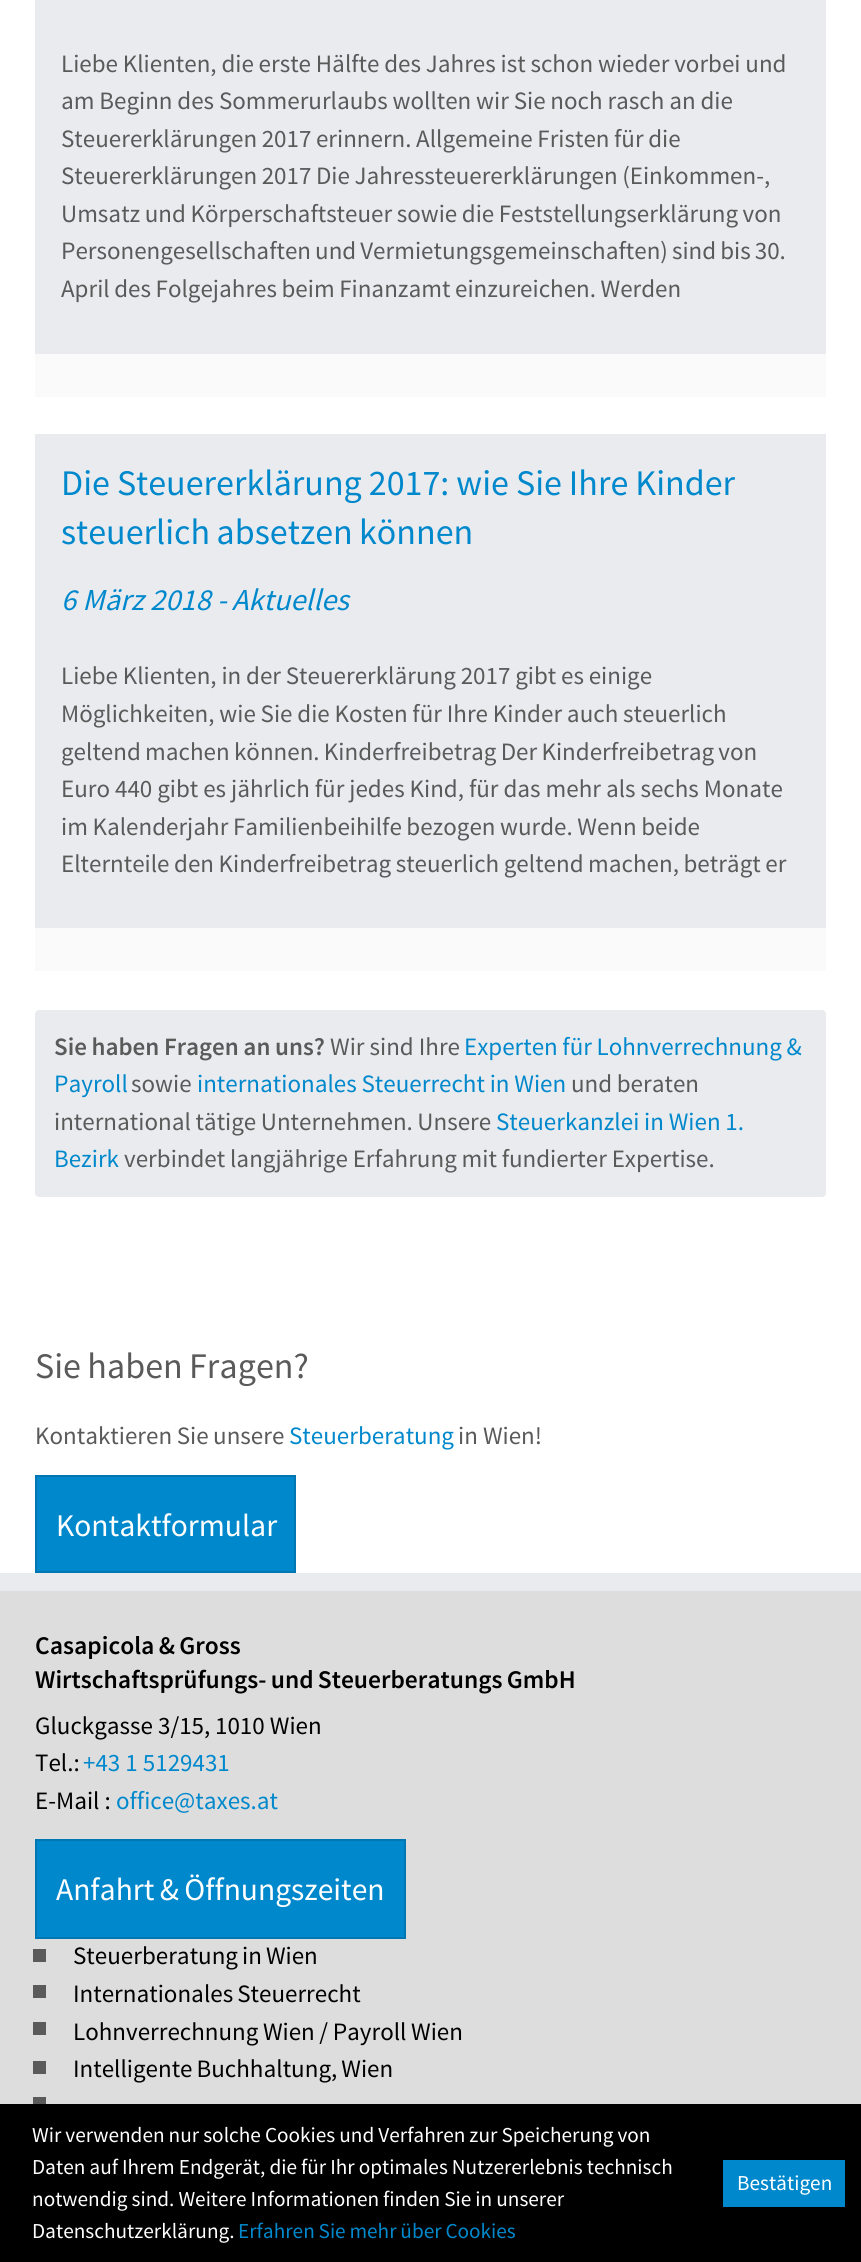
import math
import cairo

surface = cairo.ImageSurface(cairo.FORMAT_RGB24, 861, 2262)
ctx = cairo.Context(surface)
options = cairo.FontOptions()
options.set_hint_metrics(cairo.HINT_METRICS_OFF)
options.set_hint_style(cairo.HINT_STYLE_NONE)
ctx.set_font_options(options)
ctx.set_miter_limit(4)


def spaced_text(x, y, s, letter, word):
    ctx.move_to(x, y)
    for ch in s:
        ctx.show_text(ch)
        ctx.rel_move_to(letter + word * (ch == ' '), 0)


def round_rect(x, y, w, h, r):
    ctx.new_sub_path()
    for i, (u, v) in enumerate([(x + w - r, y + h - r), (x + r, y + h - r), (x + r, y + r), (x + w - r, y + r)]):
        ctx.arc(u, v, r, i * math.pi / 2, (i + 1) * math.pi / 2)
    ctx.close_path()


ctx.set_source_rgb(1, 1, 1)
ctx.paint()
ctx.set_source_rgb(0.914, 0.918, 0.933)
ctx.rectangle(35, 0, 791, 354)
ctx.fill()
ctx.set_source_rgb(0.98, 0.98, 0.98)
ctx.rectangle(35, 354, 791, 43)
ctx.fill()
ctx.select_font_face("Source Sans Pro")
ctx.set_font_size(25)
ctx.set_source_rgb(0.353, 0.353, 0.353)
spaced_text(61, 72, "Liebe Klienten, die erste Hälfte des Jahres ist schon wieder vorbei und", 0, -0.25)
spaced_text(61, 109, "am Beginn des Sommerurlaubs wollten wir Sie noch rasch an die", 0, -0.25)
spaced_text(61, 147, "Steuererklärungen 2017 erinnern. Allgemeine Fristen für die", 0, -0.5)
spaced_text(61, 184, "Steuererklärungen 2017 Die Jahressteuererklärungen (Einkommen-,", 0, -0.5)
spaced_text(61, 222, "Umsatz und Körperschaftsteuer sowie die Feststellungserklärung von", 0, -0.5)
spaced_text(61, 259, "Personengesellschaften und Vermietungsgemeinschaften) sind bis 30.", 0, -1)
spaced_text(61, 297, "April des Folgejahres beim Finanzamt einzureichen. Werden", 0, -0.5)
ctx.set_source_rgb(0.914, 0.918, 0.933)
ctx.rectangle(35, 434, 791, 494)
ctx.fill()
ctx.set_source_rgb(0.98, 0.98, 0.98)
ctx.rectangle(35, 928, 791, 43)
ctx.fill()
ctx.set_font_size(36)
ctx.set_source_rgb(0, 0.533, 0.8)
spaced_text(61, 495, "Die Steuererklärung 2017: wie Sie Ihre Kinder", 0, -0.25)
spaced_text(61, 544, "steuerlich absetzen können", 0, -1)
ctx.select_font_face("Source Sans Pro", cairo.FONT_SLANT_ITALIC)
ctx.set_font_size(30.5)
ctx.move_to(61, 610)
ctx.show_text("6 März")
ctx.move_to(150, 610)
ctx.show_text("2018")
spaced_text(217, 610, "- Aktuelles", 0, -1)
ctx.select_font_face("Source Sans Pro")
ctx.set_font_size(25)
ctx.set_source_rgb(0.353, 0.353, 0.353)
spaced_text(61, 684, "Liebe Klienten, in der Steuererklärung 2017 gibt es einige", 0, -0.25)
spaced_text(61, 722, "Möglichkeiten, wie Sie die Kosten für Ihre Kinder auch steuerlich", 0, -0.25)
spaced_text(61, 760, "geltend machen können. Kinderfreibetrag Der Kinderfreibetrag von", 0, -0.75)
spaced_text(61, 797, "Euro 440 gibt es jährlich für jedes Kind, für das mehr als sechs Monate", 0, -0.1)
spaced_text(61, 835, "im Kalenderjahr Familienbeihilfe bezogen wurde. Wenn beide", 0, -0.5)
spaced_text(61, 872, "Elternteile den Kinderfreibetrag steuerlich geltend machen, beträgt er", 0, -0.5)
ctx.set_source_rgb(0.914, 0.918, 0.933)
round_rect(35, 1010, 791, 187, 4)
ctx.fill()
ctx.select_font_face("Source Sans Pro SemiBold")
ctx.set_source_rgb(0.353, 0.353, 0.353)
spaced_text(54, 1055, "Sie haben Fragen an uns?", 0, -0.5)
ctx.select_font_face("Source Sans Pro")
ctx.move_to(330, 1055)
ctx.show_text("Wir sind Ihre")
ctx.set_source_rgb(0, 0.533, 0.8)
spaced_text(464, 1055, "Experten für Lohnverrechnung &", 0, -0.5)
ctx.move_to(54, 1092)
ctx.show_text("Payroll")
ctx.set_source_rgb(0.353, 0.353, 0.353)
ctx.move_to(131, 1092)
ctx.show_text("sowie")
ctx.set_source_rgb(0, 0.533, 0.8)
spaced_text(197, 1092, "internationales Steuerrecht in Wien", 0, -0.25)
ctx.set_source_rgb(0.353, 0.353, 0.353)
spaced_text(571, 1092, "und beraten", 0, -0.5)
spaced_text(54, 1130, "international tätige Unternehmen. Unsere", 0, -0.5)
ctx.set_source_rgb(0, 0.533, 0.8)
spaced_text(496, 1130, "Steuerkanzlei in Wien 1.", 0, -0.25)
ctx.move_to(54, 1167)
ctx.show_text("Bezirk")
ctx.set_source_rgb(0.353, 0.353, 0.353)
spaced_text(124, 1167, "verbindet langjährige Erfahrung mit fundierter Expertise.", 0, -0.25)
ctx.set_font_size(36)
spaced_text(35, 1378, "Sie haben Fragen?", 0, -1)
ctx.set_font_size(25)
spaced_text(35, 1444, "Kontaktieren Sie unsere", 0, -0.5)
ctx.set_source_rgb(0, 0.533, 0.8)
ctx.move_to(289, 1444)
ctx.show_text("Steuerberatung")
ctx.set_source_rgb(0.353, 0.353, 0.353)
ctx.move_to(458, 1444)
ctx.show_text("in Wien!")
ctx.set_source_rgb(0, 0.533, 0.8)
ctx.rectangle(36, 1476, 259, 96)
ctx.fill_preserve()
ctx.set_source_rgb(0, 0.467, 0.702)
ctx.stroke()
ctx.set_font_size(31.5)
ctx.set_source_rgb(1, 1, 1)
ctx.move_to(56, 1536)
ctx.show_text("Kontaktformular")
ctx.set_source_rgb(0.867, 0.867, 0.867)
ctx.rectangle(0, 1591, 861, 513)
ctx.fill()
ctx.set_source_rgb(0.914, 0.918, 0.933)
ctx.rectangle(0, 1573, 861, 18)
ctx.fill()
ctx.select_font_face("Source Sans Pro SemiBold")
ctx.set_font_size(25.5)
ctx.set_source_rgb(0, 0, 0)
spaced_text(35, 1654, "Casapicola & Gross", 0, -1)
spaced_text(35, 1688, "Wirtschaftsprüfungs- und Steuerberatungs GmbH", 0, -1)
ctx.select_font_face("Source Sans Pro")
ctx.set_font_size(25)
ctx.move_to(35, 1734)
ctx.show_text("Gluckgasse 3/15,")
ctx.move_to(215, 1734)
ctx.show_text("1010 Wien")
ctx.move_to(35, 1771)
ctx.show_text("Tel.:")
ctx.set_source_rgb(0, 0.533, 0.8)
ctx.move_to(83, 1771)
ctx.show_text("+43 1 5129431")
ctx.set_source_rgb(0, 0, 0)
ctx.move_to(35, 1809)
ctx.show_text("E-Mail :")
ctx.set_source_rgb(0, 0.533, 0.8)
ctx.move_to(116, 1809)
ctx.show_text("office@taxes.at")
ctx.rectangle(36, 1840, 369, 98)
ctx.fill_preserve()
ctx.set_source_rgb(0, 0.467, 0.702)
ctx.stroke()
ctx.set_font_size(31.5)
ctx.set_source_rgb(1, 1, 1)
spaced_text(56, 1900, "Anfahrt & Öffnungszeiten", 0, -1)
ctx.set_source_rgb(0.353, 0.353, 0.353)
ctx.rectangle(33, 1949, 13, 13)
ctx.fill()
ctx.set_font_size(25)
ctx.set_source_rgb(0, 0, 0)
spaced_text(73, 1964, "Steuerberatung in Wien", 0, -1)
ctx.set_source_rgb(0.353, 0.353, 0.353)
ctx.rectangle(33, 1985, 13, 13)
ctx.fill()
ctx.set_source_rgb(0, 0, 0)
spaced_text(73, 2002, "Internationales Steuerrecht", 0, -1)
ctx.set_source_rgb(0.353, 0.353, 0.353)
ctx.rectangle(33, 2022, 13, 13)
ctx.fill()
ctx.set_source_rgb(0, 0, 0)
spaced_text(73, 2040, "Lohnverrechnung Wien / Payroll Wien", 0, -0.5)
ctx.set_source_rgb(0.353, 0.353, 0.353)
ctx.rectangle(33, 2061, 13, 13)
ctx.fill()
ctx.set_source_rgb(0, 0, 0)
spaced_text(73, 2077, "Intelligente Buchhaltung, Wien", 0, -1)
ctx.set_source_rgb(0.353, 0.353, 0.353)
ctx.rectangle(33, 2097, 13, 7)
ctx.fill()
ctx.set_source_rgb(0, 0, 0)
ctx.rectangle(0, 2104, 861, 158)
ctx.fill()
ctx.set_font_size(21.25)
ctx.set_source_rgb(1, 1, 1)
spaced_text(32, 2142, "Wir verwenden nur solche Cookies und Verfahren zur Speicherung von", 0, -0.25)
spaced_text(32, 2174, "Daten auf Ihrem Endgerät, die für Ihr optimales Nutzererlebnis technisch", 0, -0.25)
spaced_text(32, 2206, "notwendig sind. Weitere Informationen finden Sie in unserer", 0, -0.25)
ctx.move_to(32, 2238)
ctx.show_text("Datenschutzerklärung.")
ctx.set_source_rgb(0, 0.533, 0.8)
spaced_text(238, 2238, "Erfahren Sie mehr über Cookies", 0, -0.5)
ctx.rectangle(723, 2160, 122, 47)
ctx.fill()
ctx.set_source_rgb(1, 1, 1)
ctx.move_to(737, 2190)
ctx.show_text("Bestätigen")
surface.write_to_png("page.png")
